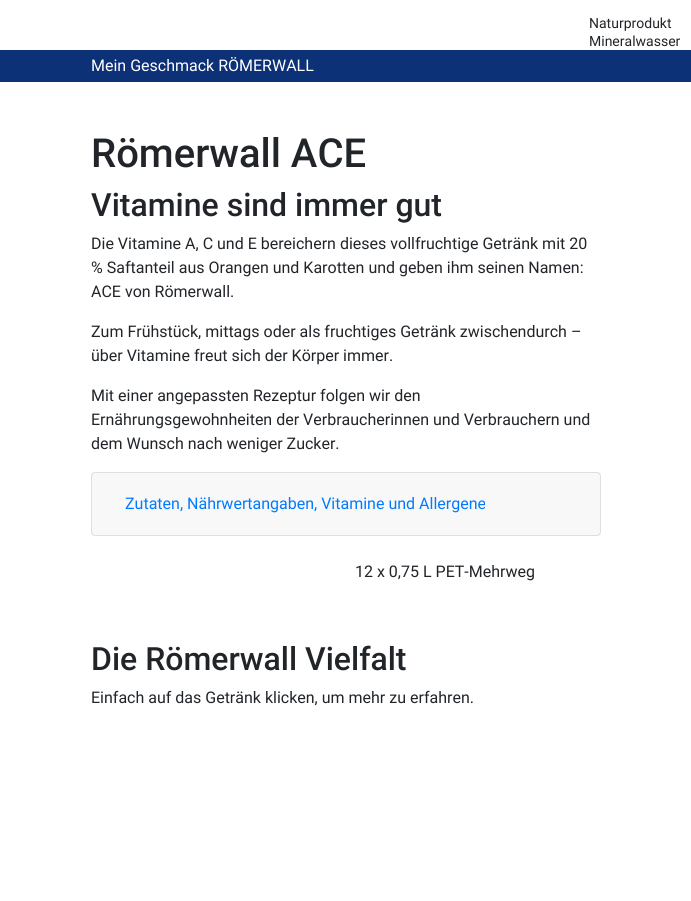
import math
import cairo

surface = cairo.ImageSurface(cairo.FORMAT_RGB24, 691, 901)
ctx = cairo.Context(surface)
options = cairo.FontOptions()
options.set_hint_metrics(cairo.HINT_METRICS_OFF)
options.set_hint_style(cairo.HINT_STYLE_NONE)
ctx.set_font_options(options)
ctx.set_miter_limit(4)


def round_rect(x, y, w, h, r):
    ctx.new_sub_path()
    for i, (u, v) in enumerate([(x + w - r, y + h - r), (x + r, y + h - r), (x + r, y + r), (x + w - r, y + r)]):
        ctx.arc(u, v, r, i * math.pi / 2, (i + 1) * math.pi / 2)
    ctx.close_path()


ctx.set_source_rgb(1, 1, 1)
ctx.paint()
ctx.select_font_face("Roboto")
ctx.set_font_size(14)
ctx.set_source_rgb(0.129, 0.145, 0.161)
ctx.move_to(589, 28)
ctx.show_text("Naturprodukt")
ctx.move_to(589, 46)
ctx.show_text("Mineralwasser")
ctx.set_source_rgb(0.047, 0.192, 0.463)
ctx.rectangle(0, 50, 691, 32)
ctx.fill()
ctx.set_font_size(16)
ctx.set_source_rgb(1, 1, 1)
ctx.move_to(91, 71)
ctx.show_text("Mein Geschmack RÖMERWALL")
ctx.select_font_face("Roboto Medium")
ctx.set_font_size(40)
ctx.set_source_rgb(0.129, 0.145, 0.161)
ctx.move_to(91, 167)
ctx.show_text("Römerwall ACE")
ctx.set_font_size(32)
ctx.move_to(91, 216)
ctx.show_text("Vitamine sind immer gut")
ctx.select_font_face("Roboto")
ctx.set_font_size(16)
ctx.move_to(91, 249)
ctx.show_text("Die Vitamine A, C und E bereichern dieses vollfruchtige Getränk mit 20")
ctx.move_to(91, 273)
ctx.show_text("% Saftanteil aus Orangen und Karotten und geben ihm seinen Namen:")
ctx.move_to(91, 297)
ctx.show_text("ACE von Römerwall.")
ctx.move_to(91, 337)
ctx.show_text("Zum Frühstück, mittags oder als fruchtiges Getränk zwischendurch –")
ctx.move_to(91, 361)
ctx.show_text("über Vitamine freut sich der Körper immer.")
ctx.move_to(91, 401)
ctx.show_text("Mit einer angepassten Rezeptur folgen wir den")
ctx.move_to(91, 425)
ctx.show_text("Ernährungsgewohnheiten der Verbraucherinnen und Verbrauchern und")
ctx.move_to(91, 449)
ctx.show_text("dem Wunsch nach weniger Zucker.")
round_rect(91.5, 472.5, 509, 63, 3.5)
ctx.set_source_rgb(0.875, 0.875, 0.875)
ctx.set_line_width(1)
ctx.stroke()
ctx.set_source_rgba(0, 0, 0, 0.03)
ctx.rectangle(92, 473, 508, 62)
ctx.fill()
ctx.set_source_rgb(0, 0.482, 1)
ctx.move_to(125, 509)
ctx.show_text("Zutaten, Nährwertangaben, Vitamine und Allergene")
ctx.set_source_rgb(0.129, 0.145, 0.161)
ctx.move_to(355, 577)
ctx.show_text("12 x 0,75 L PET-Mehrweg")
ctx.select_font_face("Roboto Medium")
ctx.set_font_size(32)
ctx.move_to(91, 670)
ctx.show_text("Die Römerwall Vielfalt")
ctx.select_font_face("Roboto")
ctx.set_font_size(16)
ctx.move_to(91, 703)
ctx.show_text("Einfach auf das Getränk klicken, um mehr zu erfahren.")
surface.write_to_png("page.png")
